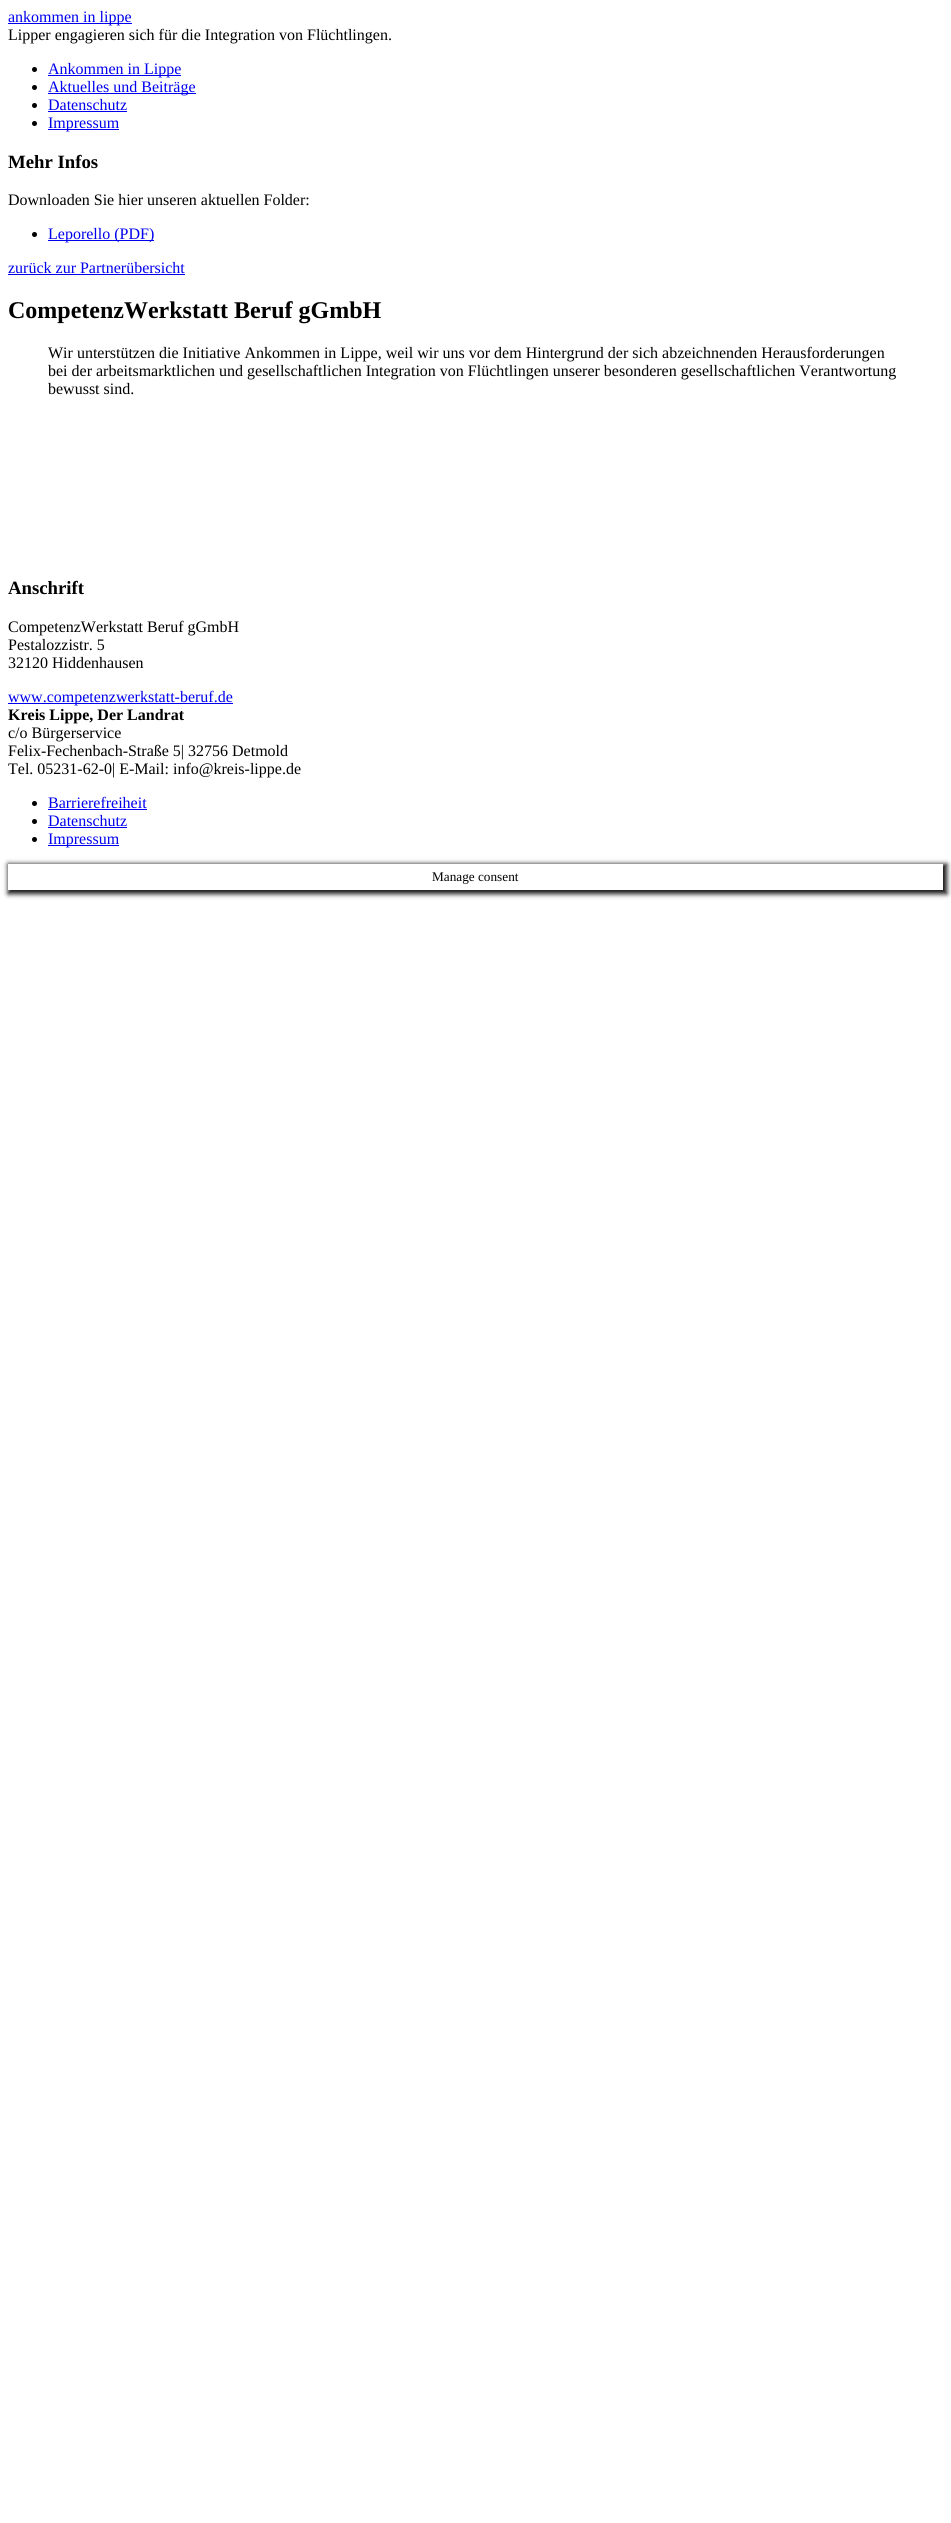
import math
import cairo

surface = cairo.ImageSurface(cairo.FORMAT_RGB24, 951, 2523)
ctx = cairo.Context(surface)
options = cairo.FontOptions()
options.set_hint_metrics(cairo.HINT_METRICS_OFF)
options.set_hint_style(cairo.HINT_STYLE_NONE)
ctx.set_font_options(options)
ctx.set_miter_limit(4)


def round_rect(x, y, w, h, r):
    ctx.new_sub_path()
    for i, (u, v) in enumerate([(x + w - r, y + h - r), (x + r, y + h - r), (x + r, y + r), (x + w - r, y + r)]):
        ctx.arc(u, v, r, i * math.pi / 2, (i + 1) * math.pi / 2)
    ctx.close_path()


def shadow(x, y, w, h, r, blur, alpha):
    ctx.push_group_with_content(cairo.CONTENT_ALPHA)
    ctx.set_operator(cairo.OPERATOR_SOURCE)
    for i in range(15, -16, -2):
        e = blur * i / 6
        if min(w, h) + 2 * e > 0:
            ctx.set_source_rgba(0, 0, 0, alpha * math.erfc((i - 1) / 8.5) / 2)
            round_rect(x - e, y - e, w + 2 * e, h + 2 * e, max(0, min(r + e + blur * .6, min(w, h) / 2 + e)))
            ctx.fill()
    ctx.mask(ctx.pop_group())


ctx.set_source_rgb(1, 1, 1)
ctx.paint()
ctx.set_source_rgb(0, 0, 0.933)
ctx.rectangle(8, 23, 124, 1)
ctx.fill()
ctx.select_font_face("Liberation Serif")
ctx.set_font_size(16)
ctx.move_to(8, 22)
ctx.show_text("ankommen in lippe")
ctx.set_source_rgb(0, 0, 0)
ctx.move_to(8, 40)
ctx.show_text("Lipper engagieren sich für die Integration von Flüchtlingen.")
ctx.new_path()
ctx.arc(34.5, 69.5, 2.5, 0, 2 * math.pi)
ctx.fill()
ctx.set_source_rgb(0, 0, 0.933)
ctx.rectangle(48, 75, 133, 1)
ctx.fill()
ctx.move_to(48, 74)
ctx.show_text("Ankommen in Lippe")
ctx.set_source_rgb(0, 0, 0)
ctx.new_path()
ctx.arc(34.5, 87.5, 2.5, 0, 2 * math.pi)
ctx.fill()
ctx.set_source_rgb(0, 0, 0.933)
ctx.rectangle(48, 93, 148, 1)
ctx.fill()
ctx.move_to(48, 92)
ctx.show_text("Aktuelles und Beiträge")
ctx.set_source_rgb(0, 0, 0)
ctx.new_path()
ctx.arc(34.5, 105.5, 2.5, 0, 2 * math.pi)
ctx.fill()
ctx.set_source_rgb(0, 0, 0.933)
ctx.move_to(48, 110)
ctx.show_text("Datenschutz")
ctx.rectangle(48, 111, 79, 1)
ctx.fill()
ctx.set_source_rgb(0, 0, 0)
ctx.arc(34.5, 123.5, 2.5, 0, 2 * math.pi)
ctx.fill()
ctx.set_source_rgb(0, 0, 0.933)
ctx.rectangle(48, 129, 71, 1)
ctx.fill()
ctx.move_to(48, 128)
ctx.show_text("Impressum")
ctx.select_font_face("Liberation Serif", cairo.FONT_SLANT_NORMAL, cairo.FONT_WEIGHT_BOLD)
ctx.set_font_size(18.75)
ctx.set_source_rgb(0, 0, 0)
ctx.move_to(8, 168)
ctx.show_text("Mehr Infos")
ctx.select_font_face("Liberation Serif")
ctx.set_font_size(16)
ctx.move_to(8, 205)
ctx.show_text("Downloaden Sie hier unseren aktuellen Folder:")
ctx.new_path()
ctx.arc(34.5, 234.5, 2.5, 0, 2 * math.pi)
ctx.fill()
ctx.set_source_rgb(0, 0, 0.933)
ctx.rectangle(48, 240, 106, 1)
ctx.fill()
ctx.move_to(48, 239)
ctx.show_text("Leporello (PDF)")
ctx.move_to(8, 273)
ctx.show_text("zurück zur Partnerübersicht")
ctx.rectangle(8, 274, 177, 1)
ctx.fill()
ctx.select_font_face("Liberation Serif", cairo.FONT_SLANT_NORMAL, cairo.FONT_WEIGHT_BOLD)
ctx.set_font_size(24)
ctx.set_source_rgb(0, 0, 0)
ctx.move_to(8, 318)
ctx.show_text("CompetenzWerkstatt Beruf gGmbH")
ctx.select_font_face("Liberation Serif")
ctx.set_font_size(16)
ctx.move_to(48, 358)
ctx.show_text("Wir unterstützen die Initiative Ankommen in Lippe, weil wir uns vor dem Hintergrund der sich abzeichnenden Herausforderungen")
ctx.move_to(48, 376)
ctx.show_text("bei der arbeitsmarktlichen und gesellschaftlichen Integration von Flüchtlingen unserer besonderen gesellschaftlichen Verantwortung")
ctx.move_to(48, 394)
ctx.show_text("bewusst sind.")
ctx.select_font_face("Liberation Serif", cairo.FONT_SLANT_NORMAL, cairo.FONT_WEIGHT_BOLD)
ctx.set_font_size(18.75)
ctx.move_to(8, 594)
ctx.show_text("Anschrift")
ctx.select_font_face("Liberation Serif")
ctx.set_font_size(16)
ctx.move_to(8, 632)
ctx.show_text("CompetenzWerkstatt Beruf gGmbH")
ctx.move_to(8, 650)
ctx.show_text("Pestalozzistr. 5")
ctx.move_to(8, 668)
ctx.show_text("32120 Hiddenhausen")
ctx.set_source_rgb(0, 0, 0.933)
ctx.rectangle(8, 703, 225, 1)
ctx.fill()
ctx.move_to(8, 702)
ctx.show_text("www.competenzwerkstatt-beruf.de")
ctx.select_font_face("Liberation Serif", cairo.FONT_SLANT_NORMAL, cairo.FONT_WEIGHT_BOLD)
ctx.set_source_rgb(0, 0, 0)
ctx.move_to(8, 720)
ctx.show_text("Kreis Lippe, Der Landrat")
ctx.select_font_face("Liberation Serif")
ctx.move_to(8, 738)
ctx.show_text("c/o Bürgerservice")
ctx.move_to(8, 756)
ctx.show_text("Felix-Fechenbach-Straße 5| 32756 Detmold")
ctx.move_to(8, 774)
ctx.show_text("Tel. 05231-62-0| E-Mail: info@kreis-lippe.de")
ctx.new_path()
ctx.arc(34.5, 803.5, 2.5, 0, 2 * math.pi)
ctx.fill()
ctx.set_source_rgb(0, 0, 0.933)
ctx.move_to(48, 808)
ctx.show_text("Barrierefreiheit")
ctx.rectangle(48, 809, 99, 1)
ctx.fill()
ctx.set_source_rgb(0, 0, 0)
ctx.arc(34.5, 821.5, 2.5, 0, 2 * math.pi)
ctx.fill()
ctx.set_source_rgb(0, 0, 0.933)
ctx.move_to(48, 826)
ctx.show_text("Datenschutz")
ctx.rectangle(48, 827, 79, 1)
ctx.fill()
ctx.set_source_rgb(0, 0, 0)
ctx.arc(34.5, 839.5, 2.5, 0, 2 * math.pi)
ctx.fill()
ctx.set_source_rgb(0, 0, 0.933)
ctx.rectangle(48, 845, 71, 1)
ctx.fill()
ctx.move_to(48, 844)
ctx.show_text("Impressum")
ctx.save()
ctx.set_fill_rule(cairo.FILL_RULE_EVEN_ODD)
ctx.new_path()
ctx.move_to(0, 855)
ctx.line_to(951, 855)
ctx.line_to(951, 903)
ctx.line_to(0, 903)
ctx.close_path()
ctx.move_to(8, 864)
ctx.line_to(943, 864)
ctx.line_to(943, 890)
ctx.line_to(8, 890)
ctx.close_path()
ctx.clip()
ctx.set_source_rgb(0.086, 0.086, 0.086)
shadow(8, 864, 939, 30, 0, 2.5, 1)
ctx.restore()
ctx.set_font_size(13.25)
ctx.set_source_rgb(0, 0, 0)
ctx.move_to(432, 881)
ctx.show_text("Manage consent")
surface.write_to_png("page.png")
